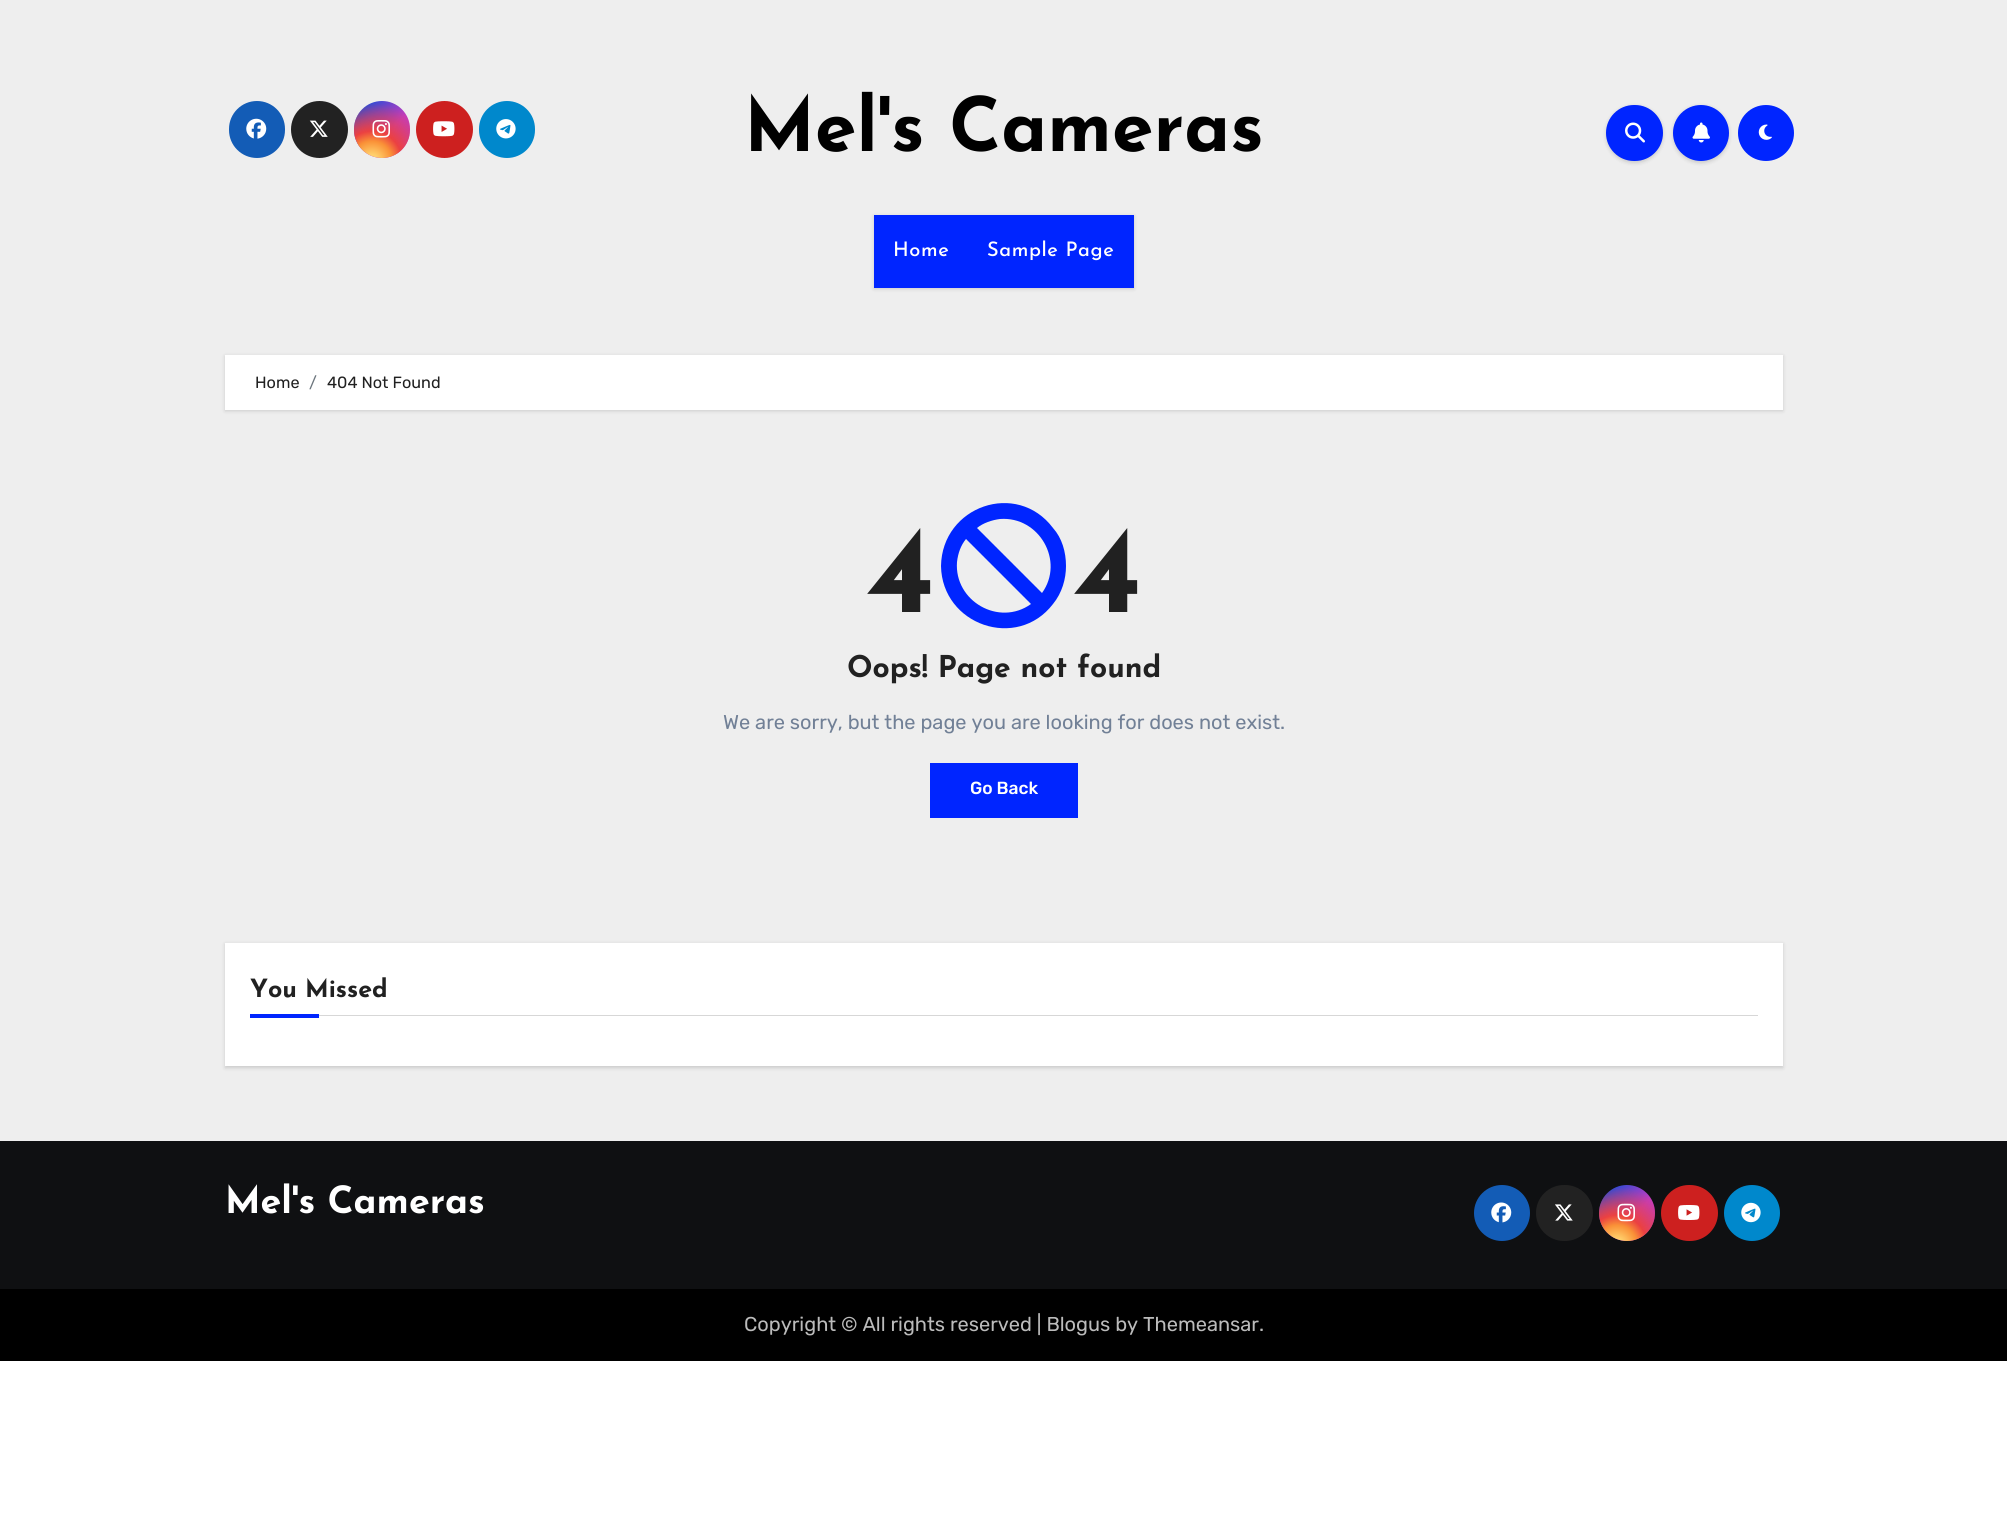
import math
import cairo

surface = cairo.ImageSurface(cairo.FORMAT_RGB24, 2007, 1537)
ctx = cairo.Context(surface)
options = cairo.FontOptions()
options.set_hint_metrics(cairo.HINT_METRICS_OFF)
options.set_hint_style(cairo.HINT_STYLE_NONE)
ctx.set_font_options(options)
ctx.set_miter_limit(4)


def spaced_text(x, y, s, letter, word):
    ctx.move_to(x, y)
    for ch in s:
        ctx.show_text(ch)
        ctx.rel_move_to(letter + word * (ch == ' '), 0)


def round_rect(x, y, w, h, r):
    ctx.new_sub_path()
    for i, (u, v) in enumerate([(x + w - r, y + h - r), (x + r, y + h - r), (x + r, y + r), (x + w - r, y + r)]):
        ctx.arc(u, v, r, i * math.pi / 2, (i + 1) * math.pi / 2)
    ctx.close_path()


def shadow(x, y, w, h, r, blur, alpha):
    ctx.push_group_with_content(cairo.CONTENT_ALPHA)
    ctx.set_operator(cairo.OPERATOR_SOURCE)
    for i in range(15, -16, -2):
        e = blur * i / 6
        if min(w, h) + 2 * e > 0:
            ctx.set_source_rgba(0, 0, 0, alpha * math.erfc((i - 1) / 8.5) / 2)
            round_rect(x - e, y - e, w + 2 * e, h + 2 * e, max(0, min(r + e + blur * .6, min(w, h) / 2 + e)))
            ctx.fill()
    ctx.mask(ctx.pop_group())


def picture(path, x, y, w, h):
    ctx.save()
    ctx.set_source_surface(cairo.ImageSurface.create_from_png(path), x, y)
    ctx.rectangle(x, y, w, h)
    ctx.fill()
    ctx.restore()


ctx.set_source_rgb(1, 1, 1)
ctx.paint()
ctx.set_source_rgb(0.933, 0.933, 0.933)
ctx.rectangle(0, 0, 2007, 1141)
ctx.fill()
ctx.set_source_rgb(0.075, 0.361, 0.714)
round_rect(229, 101, 56, 57, 28)
ctx.fill()
picture("img1.png", 246, 118, 21, 21)
ctx.set_source_rgb(0.133, 0.133, 0.133)
ctx.arc(319.5, 129.5, 28.5, 0, 2 * math.pi)
ctx.fill()
picture("img2.png", 309, 120, 19, 17)
gradient = cairo.LinearGradient(354, 101, 410, 158)
gradient.add_color_stop_rgba(0.12, 0.137, 0.294, 0.843, 1)
gradient.add_color_stop_rgba(0.58, 0.765, 0.235, 0.745, 1)
ctx.set_source(gradient)
round_rect(354, 101, 56, 57, 28)
ctx.fill()
gradient = cairo.RadialGradient(372, 161, 0, 372, 161, 71)
gradient.add_color_stop_rgba(0, 1, 0.882, 0.49, 1)
gradient.add_color_stop_rgba(0.1, 1, 0.804, 0.412, 1)
gradient.add_color_stop_rgba(0.28, 0.98, 0.569, 0.216, 1)
gradient.add_color_stop_rgba(0.42, 0.922, 0.255, 0.255, 1)
gradient.add_color_stop_rgba(0.82, 0.922, 0.255, 0.255, 0)
ctx.set_source(gradient)
round_rect(354, 101, 56, 57, 28)
ctx.fill()
picture("img3.png", 372, 120, 18, 18)
ctx.set_source_rgb(0.804, 0.125, 0.122)
ctx.arc(444.5, 129.5, 28.5, 0, 2 * math.pi)
ctx.fill()
picture("img4.png", 433, 121, 22, 16)
ctx.set_source_rgb(0, 0.533, 0.8)
round_rect(479, 101, 56, 57, 28)
ctx.fill()
picture("img5.png", 496, 119, 20, 20)
ctx.select_font_face("Josefin Sans", cairo.FONT_SLANT_NORMAL, cairo.FONT_WEIGHT_BOLD)
ctx.set_font_size(75)
ctx.set_source_rgb(0, 0, 0)
ctx.move_to(744, 151)
ctx.show_text("Mel's Cameras")
ctx.set_source_rgb(0, 0, 0)
shadow(1606, 106, 57, 57, 28.5, 2, 0.15)
ctx.set_source_rgb(0, 0.145, 1)
round_rect(1606, 105, 57, 56, 28)
ctx.fill()
picture("img6.png", 1625, 122, 20, 21)
ctx.set_source_rgb(0, 0, 0)
shadow(1673, 106, 56, 57, 28, 2, 0.15)
ctx.set_source_rgb(0, 0.145, 1)
ctx.arc(1701, 133, 28, 0, 2 * math.pi)
ctx.fill()
picture("img7.png", 1692, 122, 18, 21)
ctx.arc(1766, 133, 28, 0, 2 * math.pi)
ctx.fill()
picture("img8.png", 1758, 124, 14, 16)
ctx.set_source_rgb(0, 0, 0)
shadow(874, 216, 260, 73, 0, 2, 0.15)
ctx.set_source_rgb(0, 0.145, 1)
ctx.rectangle(874, 215, 260, 73)
ctx.fill()
ctx.select_font_face("Josefin Sans Medium")
ctx.set_font_size(20)
ctx.set_source_rgb(1, 1, 1)
spaced_text(893, 256, "Home", 0.6, 0)
spaced_text(987, 256, "Sample Page", 0.6, 0)
ctx.set_source_rgb(0, 0, 0)
shadow(225, 356, 1558, 55, 0, 2, 0.15)
ctx.set_source_rgb(1, 1, 1)
ctx.rectangle(225, 355, 1558, 55)
ctx.fill()
ctx.select_font_face("Rubik Light")
ctx.set_font_size(16.25)
ctx.set_source_rgb(0.129, 0.129, 0.129)
ctx.move_to(255, 388)
ctx.show_text("Home")
ctx.set_source_rgb(0.424, 0.459, 0.49)
ctx.move_to(309, 388)
ctx.show_text("/")
ctx.set_source_rgb(0.129, 0.129, 0.129)
ctx.move_to(327, 388)
ctx.show_text("404 Not Found")
ctx.select_font_face("Josefin Sans", cairo.FONT_SLANT_NORMAL, cairo.FONT_WEIGHT_BOLD)
ctx.set_font_size(125)
ctx.move_to(866, 612)
ctx.show_text("4")
ctx.set_source_rgb(0, 0.145, 1)
ctx.new_path()
ctx.move_to(1031, 604)
ctx.line_to(966, 539)
ctx.curve_to(961, 545, 958, 553, 957, 562)
ctx.curve_to(954, 601, 999, 627, 1031, 604)
ctx.close_path()
ctx.move_to(1042, 593)
ctx.curve_to(1065, 561, 1039, 516, 1000, 519)
ctx.curve_to(992, 520, 983, 523, 977, 528)
ctx.close_path()
ctx.move_to(941, 566)
ctx.curve_to(942, 506, 1017, 480, 1053, 528)
ctx.curve_to(1062, 538, 1066, 552, 1066, 566)
ctx.curve_to(1066, 579, 1062, 593, 1053, 604)
ctx.curve_to(1017, 651, 942, 625, 941, 566)
ctx.close_path()
ctx.fill()
ctx.set_source_rgb(0.129, 0.129, 0.129)
ctx.move_to(1073, 612)
ctx.show_text("4")
ctx.set_font_size(30)
ctx.move_to(847, 677)
ctx.show_text("Oops! Page not found")
ctx.select_font_face("Rubik Light")
ctx.set_font_size(20)
ctx.set_source_rgb(0.443, 0.502, 0.588)
ctx.move_to(723, 729)
ctx.show_text("We are sorry, but the page you are looking for does not exist.")
ctx.set_source_rgb(0, 0.145, 1)
ctx.rectangle(930, 763, 148, 55)
ctx.fill()
ctx.select_font_face("Rubik Medium")
ctx.set_font_size(17.5)
ctx.set_source_rgb(1, 1, 1)
ctx.move_to(970, 794)
ctx.show_text("Go Back")
ctx.set_source_rgb(0, 0, 0)
shadow(225, 944, 1558, 124, 0, 2, 0.15)
ctx.set_source_rgb(1, 1, 1)
ctx.rectangle(225, 943, 1558, 123)
ctx.fill()
ctx.set_source_rgb(0.843, 0.843, 0.843)
ctx.rectangle(319, 1015, 1439, 1)
ctx.fill()
ctx.select_font_face("Josefin Sans", cairo.FONT_SLANT_NORMAL, cairo.FONT_WEIGHT_BOLD)
ctx.set_font_size(25)
ctx.set_source_rgb(0.129, 0.129, 0.129)
ctx.move_to(250, 997)
ctx.show_text("You Missed")
ctx.set_source_rgb(0, 0.145, 1)
ctx.rectangle(250, 1014, 69, 4)
ctx.fill()
ctx.set_source_rgb(0.059, 0.063, 0.071)
ctx.rectangle(0, 1141, 2007, 148)
ctx.fill()
ctx.set_font_size(37.5)
ctx.set_source_rgb(1, 1, 1)
ctx.move_to(225, 1213)
ctx.show_text("Mel's Cameras")
ctx.set_source_rgb(0.075, 0.361, 0.714)
ctx.new_path()
ctx.arc(1502, 1213, 28, 0, 2 * math.pi)
ctx.fill()
picture("img9.png", 1491, 1202, 21, 21)
ctx.set_source_rgb(0.133, 0.133, 0.133)
round_rect(1536, 1185, 57, 56, 28)
ctx.fill()
picture("img10.png", 1555, 1204, 18, 17)
gradient = cairo.LinearGradient(1599, 1185, 1655, 1241)
gradient.add_color_stop_rgba(0.12, 0.137, 0.294, 0.843, 1)
gradient.add_color_stop_rgba(0.58, 0.765, 0.235, 0.745, 1)
ctx.set_source(gradient)
ctx.arc(1627, 1213, 28, 0, 2 * math.pi)
ctx.fill()
gradient = cairo.RadialGradient(1617, 1245, 0, 1617, 1245, 71)
gradient.add_color_stop_rgba(0, 1, 0.882, 0.49, 1)
gradient.add_color_stop_rgba(0.1, 1, 0.804, 0.412, 1)
gradient.add_color_stop_rgba(0.28, 0.98, 0.569, 0.216, 1)
gradient.add_color_stop_rgba(0.42, 0.922, 0.255, 0.255, 1)
gradient.add_color_stop_rgba(0.82, 0.922, 0.255, 0.255, 0)
ctx.set_source(gradient)
ctx.arc(1627, 1213, 28, 0, 2 * math.pi)
ctx.fill()
picture("img11.png", 1617, 1203, 18, 19)
ctx.set_source_rgb(0.804, 0.125, 0.122)
round_rect(1661, 1185, 57, 56, 28)
ctx.fill()
picture("img12.png", 1678, 1205, 22, 15)
ctx.set_source_rgb(0, 0.533, 0.8)
ctx.arc(1752, 1213, 28, 0, 2 * math.pi)
ctx.fill()
picture("img13.png", 1741, 1202, 20, 21)
ctx.set_source_rgb(0, 0, 0)
ctx.rectangle(0, 1289, 2007, 72)
ctx.fill()
ctx.select_font_face("Rubik Light")
ctx.set_font_size(20)
ctx.set_source_rgb(0.733, 0.733, 0.733)
ctx.move_to(744, 1331)
ctx.show_text("Copyright © All rights reserved | Blogus by Themeansar.")
surface.write_to_png("page.png")
